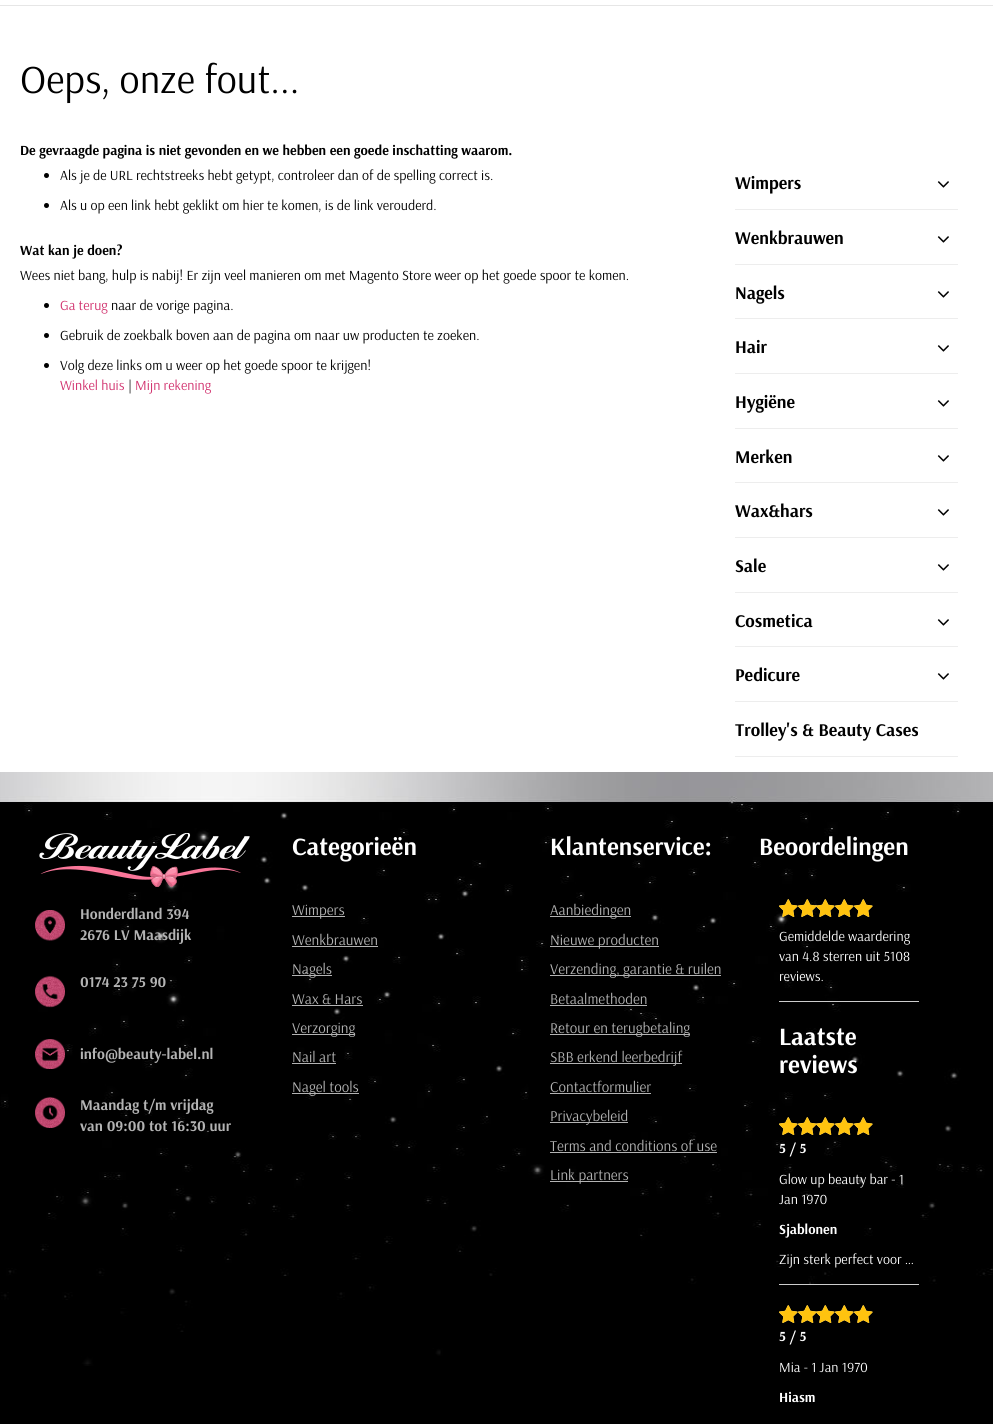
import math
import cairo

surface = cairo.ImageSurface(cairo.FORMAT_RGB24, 993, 1424)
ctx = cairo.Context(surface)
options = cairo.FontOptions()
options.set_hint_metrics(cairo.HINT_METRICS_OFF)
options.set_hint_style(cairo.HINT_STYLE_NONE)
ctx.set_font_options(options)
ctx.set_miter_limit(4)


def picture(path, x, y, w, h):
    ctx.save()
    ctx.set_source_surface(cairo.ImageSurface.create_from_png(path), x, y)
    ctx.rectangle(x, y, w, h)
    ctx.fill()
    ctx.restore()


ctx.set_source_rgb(1, 1, 1)
ctx.paint()
ctx.set_source_rgb(0.902, 0.902, 0.902)
ctx.rectangle(0, 5, 993, 1)
ctx.fill()
ctx.select_font_face("Arsenal")
ctx.set_font_size(40)
ctx.set_source_rgb(0, 0, 0)
ctx.move_to(20, 93)
ctx.show_text("Oeps, onze fout...")
ctx.select_font_face("Arsenal", cairo.FONT_SLANT_NORMAL, cairo.FONT_WEIGHT_BOLD)
ctx.set_font_size(14)
ctx.move_to(20, 155)
ctx.show_text("De gevraagde pagina is niet gevonden en we hebben een goede inschatting waarom.")
ctx.new_path()
ctx.arc(46.5, 175.5, 2.5, 0, 2 * math.pi)
ctx.fill()
ctx.select_font_face("Arsenal")
ctx.move_to(60, 180)
ctx.show_text("Als je de URL rechtstreeks hebt getypt, controleer dan of de spelling correct is.")
ctx.new_path()
ctx.arc(46.5, 205.5, 2.5, 0, 2 * math.pi)
ctx.fill()
ctx.move_to(60, 210)
ctx.show_text("Als u op een link hebt geklikt om hier te komen, is de link verouderd.")
ctx.select_font_face("Arsenal", cairo.FONT_SLANT_NORMAL, cairo.FONT_WEIGHT_BOLD)
ctx.move_to(20, 255)
ctx.show_text("Wat kan je doen?")
ctx.select_font_face("Arsenal")
ctx.move_to(20, 280)
ctx.show_text("Wees niet bang, hulp is nabij! Er zijn veel manieren om met Magento Store weer op het goede spoor te komen.")
ctx.new_path()
ctx.arc(46.5, 305.5, 2.5, 0, 2 * math.pi)
ctx.fill()
ctx.set_source_rgb(0.82, 0.188, 0.427)
ctx.move_to(60, 310)
ctx.show_text("Ga terug")
ctx.set_source_rgb(0, 0, 0)
ctx.move_to(111, 310)
ctx.show_text("naar de vorige pagina.")
ctx.new_path()
ctx.arc(46.5, 335.5, 2.5, 0, 2 * math.pi)
ctx.fill()
ctx.move_to(60, 340)
ctx.show_text("Gebruik de zoekbalk boven aan de pagina om naar uw producten te zoeken.")
ctx.new_path()
ctx.arc(46.5, 365.5, 2.5, 0, 2 * math.pi)
ctx.fill()
ctx.move_to(60, 370)
ctx.show_text("Volg deze links om u weer op het goede spoor te krijgen!")
ctx.set_source_rgb(0.82, 0.188, 0.427)
ctx.move_to(60, 390)
ctx.show_text("Winkel huis")
ctx.set_source_rgb(0, 0, 0)
ctx.move_to(128, 390)
ctx.show_text("|")
ctx.set_source_rgb(0.82, 0.188, 0.427)
ctx.move_to(135, 390)
ctx.show_text("Mijn rekening")
ctx.set_source_rgb(0.929, 0.929, 0.929)
ctx.rectangle(735, 209, 223, 1)
ctx.fill()
ctx.select_font_face("Arsenal", cairo.FONT_SLANT_NORMAL, cairo.FONT_WEIGHT_BOLD)
ctx.set_font_size(18)
ctx.set_source_rgb(0, 0, 0)
ctx.move_to(735, 189)
ctx.show_text("Wimpers")
picture("img1.png", 937, 181, 12, 7)
ctx.set_source_rgb(0.929, 0.929, 0.929)
ctx.rectangle(735, 264, 223, 1)
ctx.fill()
ctx.set_source_rgb(0, 0, 0)
ctx.move_to(735, 244)
ctx.show_text("Wenkbrauwen")
picture("img1.png", 937, 236, 12, 7)
ctx.set_source_rgb(0.929, 0.929, 0.929)
ctx.rectangle(735, 318, 223, 1)
ctx.fill()
ctx.set_source_rgb(0, 0, 0)
ctx.move_to(735, 299)
ctx.show_text("Nagels")
picture("img1.png", 937, 291, 12, 7)
ctx.set_source_rgb(0.929, 0.929, 0.929)
ctx.rectangle(735, 373, 223, 1)
ctx.fill()
ctx.set_source_rgb(0, 0, 0)
ctx.move_to(735, 353)
ctx.show_text("Hair")
picture("img1.png", 937, 345, 12, 7)
ctx.set_source_rgb(0.929, 0.929, 0.929)
ctx.rectangle(735, 428, 223, 1)
ctx.fill()
ctx.set_source_rgb(0, 0, 0)
ctx.move_to(735, 408)
ctx.show_text("Hygiëne")
picture("img1.png", 937, 400, 12, 7)
ctx.set_source_rgb(0.929, 0.929, 0.929)
ctx.rectangle(735, 482, 223, 1)
ctx.fill()
ctx.set_source_rgb(0, 0, 0)
ctx.move_to(735, 463)
ctx.show_text("Merken")
picture("img1.png", 937, 455, 12, 7)
ctx.set_source_rgb(0.929, 0.929, 0.929)
ctx.rectangle(735, 537, 223, 1)
ctx.fill()
ctx.set_source_rgb(0, 0, 0)
ctx.move_to(735, 517)
ctx.show_text("Wax&hars")
picture("img1.png", 937, 509, 12, 7)
ctx.set_source_rgb(0.929, 0.929, 0.929)
ctx.rectangle(735, 592, 223, 1)
ctx.fill()
ctx.set_source_rgb(0, 0, 0)
ctx.move_to(735, 572)
ctx.show_text("Sale")
picture("img1.png", 937, 564, 12, 7)
ctx.set_source_rgb(0.929, 0.929, 0.929)
ctx.rectangle(735, 646, 223, 1)
ctx.fill()
ctx.set_source_rgb(0, 0, 0)
ctx.move_to(735, 627)
ctx.show_text("Cosmetica")
picture("img1.png", 937, 619, 12, 7)
ctx.set_source_rgb(0.929, 0.929, 0.929)
ctx.rectangle(735, 701, 223, 1)
ctx.fill()
ctx.set_source_rgb(0, 0, 0)
ctx.move_to(735, 681)
ctx.show_text("Pedicure")
picture("img1.png", 937, 673, 12, 7)
ctx.set_source_rgb(0.929, 0.929, 0.929)
ctx.rectangle(735, 756, 223, 1)
ctx.fill()
ctx.set_source_rgb(0, 0, 0)
ctx.move_to(735, 736)
ctx.show_text("Trolley's & Beauty Cases")
ctx.rectangle(0, 1366, 993, 58)
ctx.fill()
picture("img2.png", 0, 772, 993, 594)
picture("img3.png", 39, 833, 211, 54)
picture("img4.png", 35, 910, 30, 31)
ctx.set_font_size(15)
ctx.set_source_rgb(0.702, 0.702, 0.702)
ctx.move_to(80, 919)
ctx.show_text("Honderdland 394")
ctx.move_to(80, 940)
ctx.show_text("2676 LV Maasdijk")
picture("img5.png", 35, 975, 30, 33)
ctx.move_to(80, 987)
ctx.show_text("0174 23 75 90")
picture("img6.png", 35, 1039, 30, 30)
ctx.move_to(80, 1059)
ctx.show_text("info@beauty-label.nl")
picture("img7.png", 35, 1096, 30, 32)
ctx.move_to(80, 1110)
ctx.show_text("Maandag t/m vrijdag")
ctx.move_to(80, 1131)
ctx.show_text("van 09:00 tot 16:30 uur")
ctx.set_font_size(25)
ctx.set_source_rgb(1, 1, 1)
ctx.move_to(292, 855)
ctx.show_text("Categorieën")
ctx.set_source_rgb(0.702, 0.702, 0.702)
ctx.rectangle(292, 916, 53, 1)
ctx.fill()
ctx.select_font_face("Arsenal")
ctx.set_font_size(15)
ctx.move_to(292, 915)
ctx.show_text("Wimpers")
ctx.move_to(292, 945)
ctx.show_text("Wenkbrauwen")
ctx.rectangle(292, 946, 86, 1)
ctx.fill()
ctx.set_source_rgba(1, 1, 1, 0.7)
ctx.rectangle(292, 975, 40, 1)
ctx.fill()
ctx.set_source_rgb(0.702, 0.702, 0.702)
ctx.move_to(292, 974)
ctx.show_text("Nagels")
ctx.move_to(292, 1004)
ctx.show_text("Wax & Hars")
ctx.rectangle(292, 1005, 71, 1)
ctx.fill()
ctx.rectangle(292, 1034, 63, 1)
ctx.fill()
ctx.move_to(292, 1033)
ctx.show_text("Verzorging")
ctx.move_to(292, 1062)
ctx.show_text("Nail art")
ctx.rectangle(292, 1063, 44, 1)
ctx.fill()
ctx.set_source_rgba(1, 1, 1, 0.7)
ctx.rectangle(292, 1093, 67, 1)
ctx.fill()
ctx.set_source_rgb(0.702, 0.702, 0.702)
ctx.move_to(292, 1092)
ctx.show_text("Nagel tools")
ctx.select_font_face("Arsenal", cairo.FONT_SLANT_NORMAL, cairo.FONT_WEIGHT_BOLD)
ctx.set_font_size(25)
ctx.set_source_rgb(1, 1, 1)
ctx.move_to(550, 855)
ctx.show_text("Klantenservice:")
ctx.set_source_rgb(0.702, 0.702, 0.702)
ctx.rectangle(550, 916, 81, 1)
ctx.fill()
ctx.select_font_face("Arsenal")
ctx.set_font_size(15)
ctx.move_to(550, 915)
ctx.show_text("Aanbiedingen")
ctx.rectangle(550, 946, 109, 1)
ctx.fill()
ctx.move_to(550, 945)
ctx.show_text("Nieuwe producten")
ctx.rectangle(550, 975, 171, 1)
ctx.fill()
ctx.move_to(550, 974)
ctx.show_text("Verzending, garantie & ruilen")
ctx.move_to(550, 1004)
ctx.show_text("Betaalmethoden")
ctx.set_source_rgba(1, 1, 1, 0.7)
ctx.rectangle(550, 1005, 97, 1)
ctx.fill()
ctx.set_source_rgb(0.702, 0.702, 0.702)
ctx.rectangle(550, 1034, 140, 1)
ctx.fill()
ctx.move_to(550, 1033)
ctx.show_text("Retour en terugbetaling")
ctx.rectangle(550, 1063, 132, 1)
ctx.fill()
ctx.move_to(550, 1062)
ctx.show_text("SBB erkend leerbedrijf")
ctx.move_to(550, 1092)
ctx.show_text("Contactformulier")
ctx.rectangle(550, 1093, 101, 1)
ctx.fill()
ctx.rectangle(550, 1122, 78, 1)
ctx.fill()
ctx.move_to(550, 1121)
ctx.show_text("Privacybeleid")
ctx.move_to(550, 1151)
ctx.show_text("Terms and conditions of use")
ctx.rectangle(550, 1152, 167, 1)
ctx.fill()
ctx.rectangle(550, 1181, 78, 1)
ctx.fill()
ctx.move_to(550, 1180)
ctx.show_text("Link partners")
ctx.select_font_face("Arsenal", cairo.FONT_SLANT_NORMAL, cairo.FONT_WEIGHT_BOLD)
ctx.set_font_size(25)
ctx.set_source_rgb(1, 1, 1)
ctx.move_to(759, 855)
ctx.show_text("Beoordelingen")
picture("img8.png", 779, 899, 19, 18)
picture("img9.png", 798, 899, 19, 18)
picture("img10.png", 816, 899, 19, 18)
picture("img11.png", 835, 899, 19, 18)
picture("img11.png", 854, 899, 19, 18)
picture("img12.png", 779, 899, 19, 18)
picture("img13.png", 798, 899, 19, 18)
picture("img14.png", 816, 899, 19, 18)
picture("img15.png", 835, 899, 19, 18)
picture("img15.png", 854, 899, 19, 18)
ctx.select_font_face("Arsenal")
ctx.set_font_size(14)
ctx.move_to(779, 941)
ctx.show_text("Gemiddelde waardering")
ctx.move_to(779, 961)
ctx.show_text("van 4.8 sterren uit 5108")
ctx.move_to(779, 981)
ctx.show_text("reviews.")
ctx.set_source_rgb(0.8, 0.8, 0.8)
ctx.rectangle(779, 1001, 140, 1)
ctx.fill()
ctx.select_font_face("Arsenal", cairo.FONT_SLANT_NORMAL, cairo.FONT_WEIGHT_BOLD)
ctx.set_font_size(25)
ctx.set_source_rgb(1, 1, 1)
ctx.move_to(779, 1045)
ctx.show_text("Laatste")
ctx.move_to(779, 1073)
ctx.show_text("reviews")
picture("img11.png", 779, 1117, 19, 18)
picture("img11.png", 798, 1117, 19, 18)
picture("img16.png", 816, 1117, 19, 18)
picture("img11.png", 835, 1117, 19, 18)
picture("img11.png", 854, 1117, 19, 18)
picture("img15.png", 779, 1117, 19, 18)
picture("img17.png", 798, 1117, 19, 18)
picture("img18.png", 816, 1117, 19, 18)
picture("img15.png", 835, 1117, 19, 18)
picture("img15.png", 854, 1117, 19, 18)
ctx.set_font_size(14)
ctx.move_to(779, 1153)
ctx.show_text("5 / 5")
ctx.select_font_face("Arsenal")
ctx.move_to(779, 1184)
ctx.show_text("Glow up beauty bar - 1")
ctx.move_to(779, 1204)
ctx.show_text("Jan 1970")
ctx.select_font_face("Arsenal", cairo.FONT_SLANT_NORMAL, cairo.FONT_WEIGHT_BOLD)
ctx.move_to(779, 1234)
ctx.show_text("Sjablonen")
ctx.select_font_face("Arsenal")
ctx.move_to(779, 1264)
ctx.show_text("Zijn sterk perfect voor …")
ctx.set_source_rgb(0.8, 0.8, 0.8)
ctx.rectangle(779, 1284, 140, 1)
ctx.fill()
picture("img11.png", 779, 1305, 19, 18)
picture("img11.png", 798, 1305, 19, 18)
picture("img16.png", 816, 1305, 19, 18)
picture("img11.png", 835, 1305, 19, 18)
picture("img11.png", 854, 1305, 19, 18)
picture("img15.png", 779, 1305, 19, 18)
picture("img17.png", 798, 1305, 19, 18)
picture("img18.png", 816, 1305, 19, 18)
picture("img15.png", 835, 1305, 19, 18)
picture("img15.png", 854, 1305, 19, 18)
ctx.select_font_face("Arsenal", cairo.FONT_SLANT_NORMAL, cairo.FONT_WEIGHT_BOLD)
ctx.set_source_rgb(1, 1, 1)
ctx.move_to(779, 1341)
ctx.show_text("5 / 5")
ctx.select_font_face("Arsenal")
ctx.move_to(779, 1372)
ctx.show_text("Mia - 1 Jan 1970")
ctx.select_font_face("Arsenal", cairo.FONT_SLANT_NORMAL, cairo.FONT_WEIGHT_BOLD)
ctx.move_to(779, 1402)
ctx.show_text("Hiasm")
surface.write_to_png("page.png")
